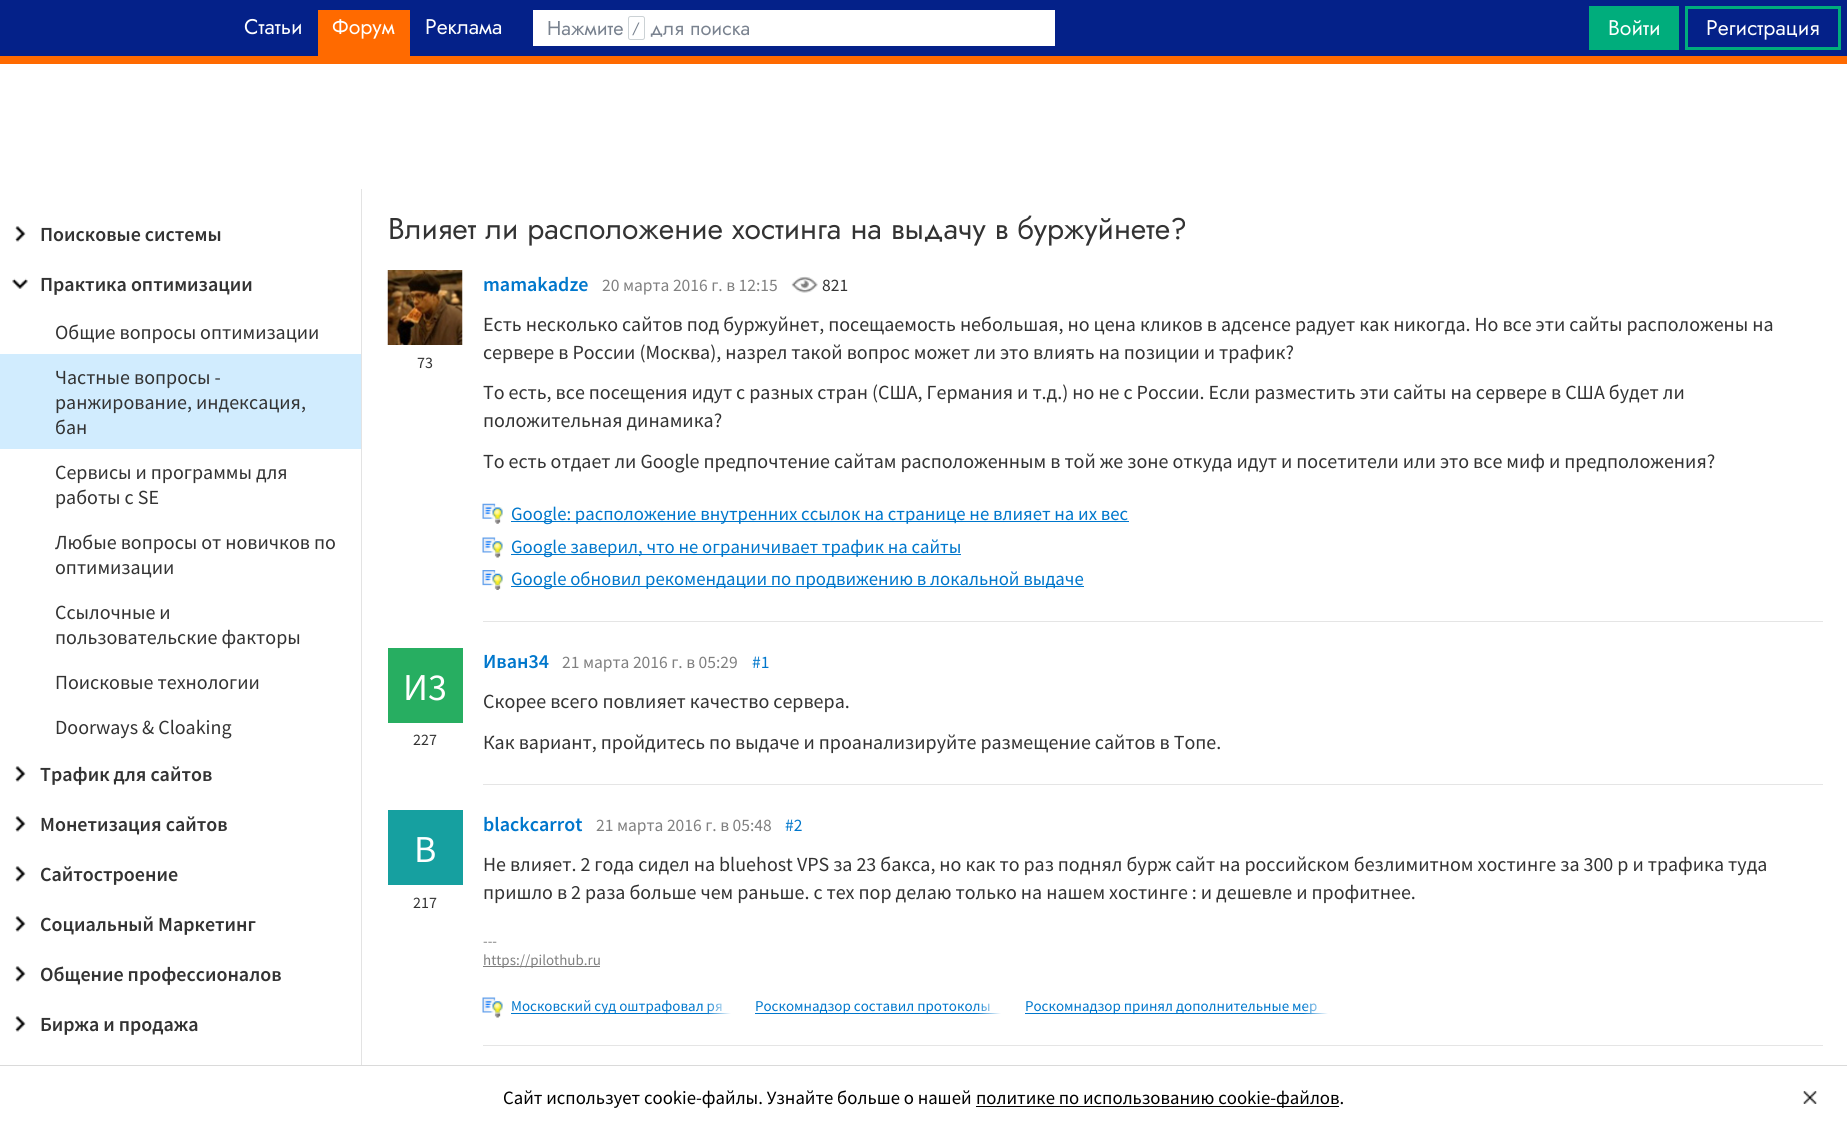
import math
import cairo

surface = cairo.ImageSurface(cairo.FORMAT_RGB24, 1847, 1130)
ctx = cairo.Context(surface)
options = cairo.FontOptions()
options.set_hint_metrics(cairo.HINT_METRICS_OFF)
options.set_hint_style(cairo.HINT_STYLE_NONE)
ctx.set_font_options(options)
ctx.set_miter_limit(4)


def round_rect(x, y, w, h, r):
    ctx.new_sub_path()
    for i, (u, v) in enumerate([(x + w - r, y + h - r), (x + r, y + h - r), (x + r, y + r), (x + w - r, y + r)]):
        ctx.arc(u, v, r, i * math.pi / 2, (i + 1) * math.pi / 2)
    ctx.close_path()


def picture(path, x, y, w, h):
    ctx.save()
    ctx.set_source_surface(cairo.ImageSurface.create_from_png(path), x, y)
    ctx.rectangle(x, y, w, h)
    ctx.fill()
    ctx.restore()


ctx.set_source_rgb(1, 1, 1)
ctx.paint()
ctx.set_source_rgb(0.016, 0.129, 0.537)
ctx.rectangle(0, 0, 1847, 56)
ctx.fill()
ctx.set_source_rgb(1, 0.416, 0)
ctx.rectangle(0, 56, 1847, 8)
ctx.fill()
ctx.select_font_face("Jost")
ctx.set_font_size(21.25)
ctx.set_source_rgb(1, 1, 1)
ctx.move_to(244, 34)
ctx.show_text("Статьи")
ctx.set_source_rgb(1, 0.416, 0)
ctx.rectangle(318, 10, 92, 46)
ctx.fill()
ctx.set_source_rgb(1, 1, 1)
ctx.move_to(332, 34)
ctx.show_text("Форум")
ctx.move_to(425, 34)
ctx.show_text("Реклама")
ctx.rectangle(533, 10, 522, 36)
ctx.fill()
ctx.set_font_size(20)
ctx.set_source_rgb(0.475, 0.51, 0.561)
ctx.move_to(547, 35)
ctx.show_text("Нажмите")
round_rect(628.5, 16.5, 16, 23, 2)
ctx.set_source_rgb(0.8, 0.824, 0.835)
ctx.set_line_width(1)
ctx.stroke()
ctx.set_font_size(15)
ctx.set_source_rgb(0.475, 0.51, 0.561)
ctx.move_to(632, 33)
ctx.show_text("/")
ctx.set_font_size(20)
ctx.move_to(650, 35)
ctx.show_text("для поиска")
ctx.set_source_rgb(0, 0.678, 0.486)
ctx.rectangle(1589, 6, 90, 44)
ctx.fill()
ctx.set_font_size(21.25)
ctx.set_source_rgb(1, 1, 1)
ctx.move_to(1608, 35)
ctx.show_text("Войти")
ctx.rectangle(1686.5, 7.5, 153, 41)
ctx.set_source_rgb(0, 0.678, 0.486)
ctx.set_line_width(3)
ctx.stroke()
ctx.set_source_rgb(1, 1, 1)
ctx.move_to(1706, 35)
ctx.show_text("Регистрация")
ctx.set_source_rgb(0.89, 0.89, 0.89)
ctx.rectangle(361, 189, 1, 876)
ctx.fill()
picture("img1.png", 15, 226, 11, 16)
ctx.select_font_face("Source Sans Pro SemiBold")
ctx.set_font_size(20)
ctx.set_source_rgb(0.2, 0.2, 0.2)
ctx.move_to(40, 241)
ctx.show_text("Поисковые системы")
picture("img2.png", 12, 278, 16, 11)
ctx.move_to(40, 291)
ctx.show_text("Практика оптимизации")
ctx.select_font_face("Source Sans Pro")
ctx.move_to(55, 339)
ctx.show_text("Общие вопросы оптимизации")
ctx.set_source_rgb(0.82, 0.922, 0.996)
ctx.rectangle(0, 354, 361, 95)
ctx.fill()
ctx.set_source_rgb(0.2, 0.2, 0.2)
ctx.move_to(55, 384)
ctx.show_text("Частные вопросы -")
ctx.move_to(55, 409)
ctx.show_text("ранжирование, индексация,")
ctx.move_to(55, 434)
ctx.show_text("бан")
ctx.move_to(55, 479)
ctx.show_text("Сервисы и программы для")
ctx.move_to(55, 504)
ctx.show_text("работы с SE")
ctx.move_to(55, 549)
ctx.show_text("Любые вопросы от новичков по")
ctx.move_to(55, 574)
ctx.show_text("оптимизации")
ctx.move_to(55, 619)
ctx.show_text("Ссылочные и")
ctx.move_to(55, 644)
ctx.show_text("пользовательские факторы")
ctx.move_to(55, 689)
ctx.show_text("Поисковые технологии")
ctx.move_to(55, 734)
ctx.show_text("Doorways & Cloaking")
picture("img1.png", 15, 766, 11, 16)
ctx.select_font_face("Source Sans Pro SemiBold")
ctx.move_to(40, 781)
ctx.show_text("Трафик для сайтов")
picture("img1.png", 15, 816, 11, 16)
ctx.move_to(40, 831)
ctx.show_text("Монетизация сайтов")
picture("img1.png", 15, 866, 11, 16)
ctx.move_to(40, 881)
ctx.show_text("Сайтостроение")
picture("img1.png", 15, 916, 11, 16)
ctx.move_to(40, 931)
ctx.show_text("Социальный Маркетинг")
picture("img1.png", 15, 966, 11, 16)
ctx.move_to(40, 981)
ctx.show_text("Общение профессионалов")
picture("img1.png", 15, 1016, 11, 16)
ctx.move_to(40, 1031)
ctx.show_text("Биржа и продажа")
ctx.select_font_face("Jost")
ctx.set_font_size(30)
ctx.move_to(388, 239)
ctx.show_text("Влияет ли расположение хостинга на выдачу в буржуйнете?")
ctx.select_font_face("Source Sans Pro SemiBold")
ctx.set_font_size(20)
ctx.set_source_rgb(0, 0.467, 0.8)
ctx.move_to(483, 291)
ctx.show_text("mamakadze")
ctx.select_font_face("Source Sans Pro")
ctx.set_font_size(17.5)
ctx.set_source_rgb(0.502, 0.502, 0.502)
ctx.move_to(602, 291)
ctx.show_text("20 марта 2016 г. в 12:15")
picture("img3.png", 791, 276, 27, 17)
ctx.set_source_rgb(0.2, 0.2, 0.2)
ctx.move_to(822, 291)
ctx.show_text("821")
picture("img4.png", 387, 270, 76, 75)
ctx.set_font_size(16)
ctx.move_to(417, 368)
ctx.show_text("73")
ctx.set_font_size(20)
ctx.move_to(483, 331)
ctx.show_text("Есть несколько сайтов под буржуйнет, посещаемость небольшая, но цена кликов в адсенсе радует как никогда. Но все эти сайты расположены на")
ctx.move_to(483, 359)
ctx.show_text("сервере в России (Москва), назрел такой вопрос может ли это влиять на позиции и трафик?")
ctx.move_to(483, 399)
ctx.show_text("То есть, все посещения идут с разных стран (США, Германия и т.д.) но не с России. Если разместить эти сайты на сервере в США будет ли")
ctx.move_to(483, 427)
ctx.show_text("положительная динамика?")
ctx.move_to(483, 468)
ctx.show_text("То есть отдает ли Google предпочтение сайтам расположенным в той же зоне откуда идут и посетители или это все миф и предположения?")
picture("img5.png", 482, 503, 21, 21)
ctx.set_source_rgb(0, 0.467, 0.8)
ctx.rectangle(511, 521, 618, 1)
ctx.fill()
ctx.set_font_size(18.75)
ctx.move_to(511, 520)
ctx.show_text("Google: расположение внутренних ссылок на странице не влияет на их вес")
picture("img6.png", 482, 537, 21, 21)
ctx.rectangle(511, 554, 450, 1)
ctx.fill()
ctx.move_to(511, 553)
ctx.show_text("Google заверил, что не ограничивает трафик на сайты")
picture("img7.png", 482, 570, 21, 20)
ctx.rectangle(511, 586, 573, 1)
ctx.fill()
ctx.move_to(511, 585)
ctx.show_text("Google обновил рекомендации по продвижению в локальной выдаче")
ctx.set_source_rgb(0.898, 0.898, 0.898)
ctx.rectangle(483, 621, 1340, 1)
ctx.fill()
ctx.select_font_face("Source Sans Pro SemiBold")
ctx.set_font_size(20)
ctx.set_source_rgb(0, 0.467, 0.8)
ctx.move_to(483, 668)
ctx.show_text("Иван34")
ctx.select_font_face("Source Sans Pro")
ctx.set_font_size(17.5)
ctx.set_source_rgb(0.502, 0.502, 0.502)
ctx.move_to(562, 668)
ctx.show_text("21 марта 2016 г. в 05:29")
ctx.set_source_rgb(0, 0.467, 0.8)
ctx.move_to(752, 668)
ctx.show_text("#1")
ctx.set_source_rgb(0.153, 0.682, 0.38)
ctx.rectangle(388, 648, 75, 75)
ctx.fill()
ctx.set_font_size(38)
ctx.set_source_rgb(1, 1, 1)
ctx.move_to(403, 700)
ctx.show_text("И3")
ctx.set_font_size(16)
ctx.set_source_rgb(0.2, 0.2, 0.2)
ctx.move_to(413, 745)
ctx.show_text("227")
ctx.set_font_size(20)
ctx.move_to(483, 708)
ctx.show_text("Скорее всего повлияет качество сервера.")
ctx.move_to(483, 749)
ctx.show_text("Как вариант, пройдитесь по выдаче и проанализируйте размещение сайтов в Топе.")
ctx.set_source_rgb(0.898, 0.898, 0.898)
ctx.rectangle(483, 784, 1340, 1)
ctx.fill()
ctx.select_font_face("Source Sans Pro SemiBold")
ctx.set_source_rgb(0, 0.467, 0.8)
ctx.move_to(483, 831)
ctx.show_text("blackcarrot")
ctx.select_font_face("Source Sans Pro")
ctx.set_font_size(17.5)
ctx.set_source_rgb(0.502, 0.502, 0.502)
ctx.move_to(596, 831)
ctx.show_text("21 марта 2016 г. в 05:48")
ctx.set_source_rgb(0, 0.467, 0.8)
ctx.move_to(785, 831)
ctx.show_text("#2")
ctx.set_source_rgb(0.086, 0.627, 0.627)
ctx.rectangle(388, 810, 75, 75)
ctx.fill()
ctx.set_font_size(38)
ctx.set_source_rgb(1, 1, 1)
ctx.move_to(414, 862)
ctx.show_text("B")
ctx.set_font_size(16)
ctx.set_source_rgb(0.2, 0.2, 0.2)
ctx.move_to(413, 908)
ctx.show_text("217")
ctx.set_font_size(20)
ctx.move_to(483, 871)
ctx.show_text("Не влияет. 2 года сидел на bluehost VPS за 23 бакса, но как то раз поднял бурж сайт на российском безлимитном хостинге за 300 р и трафика туда")
ctx.move_to(483, 899)
ctx.show_text("пришло в 2 раза больше чем раньше. с тех пор делаю только на нашем хостинге : и дешевле и профитнее.")
ctx.set_font_size(15)
ctx.set_source_rgb(0.502, 0.502, 0.502)
ctx.move_to(483, 946)
ctx.show_text("---")
ctx.set_source_rgb(0.49, 0.49, 0.49)
ctx.rectangle(483, 966, 117, 1)
ctx.fill()
ctx.set_source_rgb(0.502, 0.502, 0.502)
ctx.move_to(483, 965)
ctx.show_text("https://pilothub.ru")
picture("img6.png", 482, 997, 21, 21)
ctx.set_source_rgb(0, 0.467, 0.8)
ctx.rectangle(511, 1013, 220, 1)
ctx.fill()
ctx.move_to(511, 1011)
ctx.show_text("Московский суд оштрафовал ря")
gradient = cairo.LinearGradient(706, 1008, 731, 1008)
gradient.add_color_stop_rgba(0, 1, 1, 1, 0)
gradient.add_color_stop_rgba(1, 1, 1, 1, 1)
ctx.set_source(gradient)
ctx.rectangle(707, 1003, 24, 11)
ctx.fill()
ctx.set_source_rgb(0, 0.467, 0.8)
ctx.rectangle(755, 1013, 246, 1)
ctx.fill()
ctx.move_to(755, 1011)
ctx.show_text("Роскомнадзор составил протоколы")
gradient = cairo.LinearGradient(976, 1008, 1001, 1008)
gradient.add_color_stop_rgba(0, 1, 1, 1, 0)
gradient.add_color_stop_rgba(1, 1, 1, 1, 1)
ctx.set_source(gradient)
ctx.rectangle(977, 1003, 24, 11)
ctx.fill()
ctx.set_source_rgb(0, 0.467, 0.8)
ctx.rectangle(1025, 1013, 303, 1)
ctx.fill()
ctx.move_to(1025, 1011)
ctx.show_text("Роскомнадзор принял дополнительные мер")
gradient = cairo.LinearGradient(1303, 1008, 1328, 1008)
gradient.add_color_stop_rgba(0, 1, 1, 1, 0)
gradient.add_color_stop_rgba(1, 1, 1, 1, 1)
ctx.set_source(gradient)
ctx.rectangle(1304, 1003, 24, 12)
ctx.fill()
ctx.set_source_rgb(0.898, 0.898, 0.898)
ctx.rectangle(483, 1045, 1340, 1)
ctx.fill()
ctx.set_source_rgb(0.855, 0.855, 0.855)
ctx.rectangle(0, 1065, 1847, 1)
ctx.fill()
ctx.set_font_size(18.75)
ctx.set_source_rgb(0, 0, 0)
ctx.move_to(503, 1104)
ctx.show_text("Сайт использует cookie-файлы. Узнайте больше о нашей")
ctx.rectangle(976, 1106, 363, 1)
ctx.fill()
ctx.move_to(976, 1104)
ctx.show_text("политике по использованию cookie-файлов.")
picture("img8.png", 1803, 1091, 14, 13)
surface.write_to_png("page.png")
